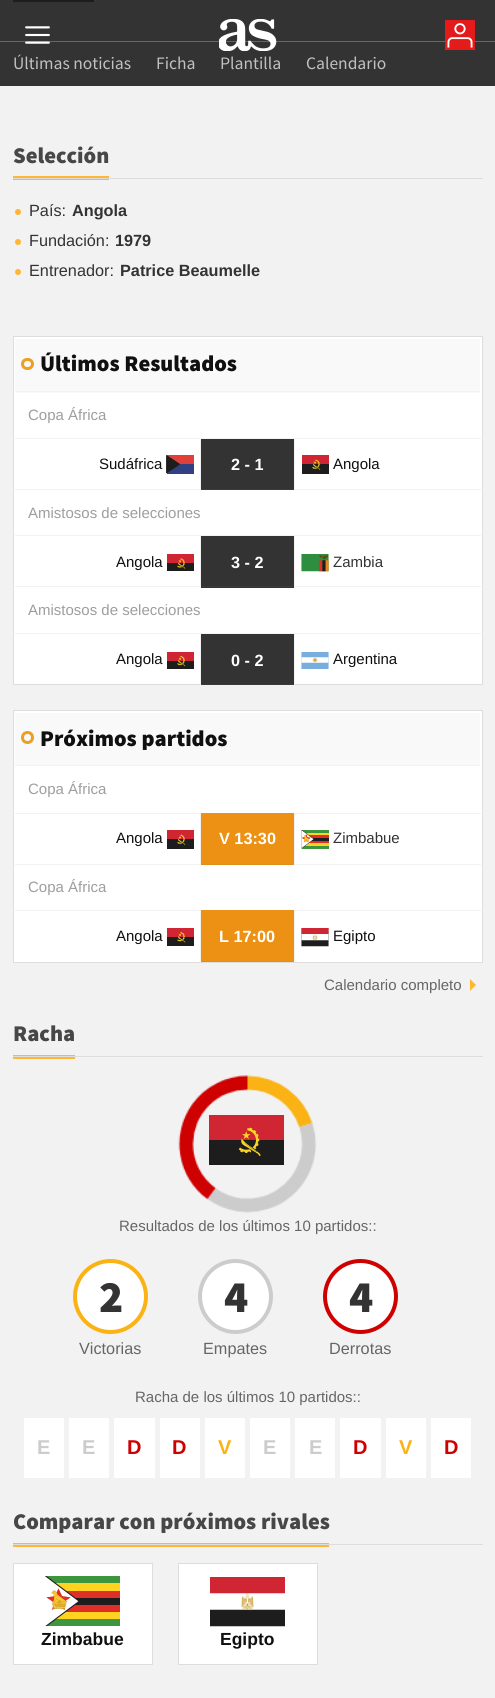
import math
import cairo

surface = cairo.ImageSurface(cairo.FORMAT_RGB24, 495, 1698)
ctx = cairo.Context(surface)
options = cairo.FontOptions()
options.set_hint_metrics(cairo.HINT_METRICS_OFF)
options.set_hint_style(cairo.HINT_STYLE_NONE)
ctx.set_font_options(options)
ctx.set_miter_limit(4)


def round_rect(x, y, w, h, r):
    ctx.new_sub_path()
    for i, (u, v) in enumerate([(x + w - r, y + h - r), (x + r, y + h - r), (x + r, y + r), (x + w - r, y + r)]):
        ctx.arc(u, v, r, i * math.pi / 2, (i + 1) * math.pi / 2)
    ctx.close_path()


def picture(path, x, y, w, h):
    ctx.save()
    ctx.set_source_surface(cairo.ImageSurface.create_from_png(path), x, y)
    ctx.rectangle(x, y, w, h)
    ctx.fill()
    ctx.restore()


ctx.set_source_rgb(0.949, 0.949, 0.949)
ctx.paint()
ctx.set_source_rgb(0.2, 0.2, 0.2)
ctx.rectangle(0, 0, 495, 86)
ctx.fill()
ctx.set_source_rgb(0.4, 0.4, 0.4)
ctx.rectangle(0, 41, 495, 1)
ctx.fill()
picture("img1.png", 25, 26, 25, 18)
picture("img2.png", 219, 19, 58, 32)
ctx.set_source_rgb(0.894, 0.106, 0.106)
ctx.rectangle(445, 20, 30, 30)
ctx.fill()
picture("img3.png", 447, 23, 26, 25)
ctx.set_source_rgb(0.114, 0.114, 0.114)
ctx.rectangle(13, 0, 81, 2)
ctx.fill()
ctx.select_font_face("Source Sans Pro")
ctx.set_font_size(17.5)
ctx.set_source_rgb(0.757, 0.757, 0.757)
ctx.move_to(13, 69)
ctx.show_text("Últimas noticias")
ctx.move_to(156, 69)
ctx.show_text("Ficha")
ctx.move_to(220, 69)
ctx.show_text("Plantilla")
ctx.move_to(306, 69)
ctx.show_text("Calendario")
ctx.select_font_face("Source Sans Pro Black")
ctx.set_font_size(22.5)
ctx.set_source_rgb(0.278, 0.278, 0.278)
ctx.move_to(13, 163)
ctx.show_text("Selección")
ctx.set_source_rgb(1, 0.714, 0.196)
ctx.rectangle(13, 176, 96, 4)
ctx.fill()
ctx.set_source_rgb(0.867, 0.867, 0.867)
ctx.rectangle(13, 178, 470, 1)
ctx.fill()
ctx.set_source_rgb(1, 0.714, 0.196)
ctx.arc(18, 212, 3, 0, 2 * math.pi)
ctx.fill()
ctx.select_font_face("Liberation Sans")
ctx.set_font_size(16.25)
ctx.set_source_rgb(0.2, 0.2, 0.2)
ctx.move_to(29, 216)
ctx.show_text("País:")
ctx.select_font_face("Liberation Sans", cairo.FONT_SLANT_NORMAL, cairo.FONT_WEIGHT_BOLD)
ctx.move_to(72, 216)
ctx.show_text("Angola")
ctx.set_source_rgb(1, 0.714, 0.196)
ctx.new_path()
ctx.arc(18, 242, 3, 0, 2 * math.pi)
ctx.fill()
ctx.select_font_face("Liberation Sans")
ctx.set_source_rgb(0.2, 0.2, 0.2)
ctx.move_to(29, 246)
ctx.show_text("Fundación:")
ctx.select_font_face("Liberation Sans", cairo.FONT_SLANT_NORMAL, cairo.FONT_WEIGHT_BOLD)
ctx.move_to(115, 246)
ctx.show_text("1979")
ctx.set_source_rgb(1, 0.714, 0.196)
ctx.new_path()
ctx.arc(18, 272, 3, 0, 2 * math.pi)
ctx.fill()
ctx.select_font_face("Liberation Sans")
ctx.set_source_rgb(0.2, 0.2, 0.2)
ctx.move_to(29, 276)
ctx.show_text("Entrenador:")
ctx.select_font_face("Liberation Sans", cairo.FONT_SLANT_NORMAL, cairo.FONT_WEIGHT_BOLD)
ctx.move_to(120, 276)
ctx.show_text("Patrice Beaumelle")
ctx.set_source_rgb(1, 1, 1)
ctx.rectangle(13.5, 336.5, 469, 348)
ctx.fill_preserve()
ctx.set_source_rgb(0.867, 0.867, 0.867)
ctx.set_line_width(1)
ctx.stroke()
ctx.set_source_rgb(0.976, 0.976, 0.976)
ctx.rectangle(15, 339, 465, 54)
ctx.fill()
ctx.set_source_rgb(0.949, 0.949, 0.949)
ctx.rectangle(15, 391, 465, 1)
ctx.fill()
round_rect(22.5, 359.5, 10, 9, 4.5)
ctx.set_source_rgb(0.925, 0.624, 0.137)
ctx.set_line_width(3)
ctx.stroke()
ctx.select_font_face("Source Sans Pro Black")
ctx.set_font_size(22.5)
ctx.set_source_rgb(0.063, 0.063, 0.063)
ctx.move_to(40, 371)
ctx.show_text("Últimos Resultados")
ctx.select_font_face("Liberation Sans")
ctx.set_font_size(15)
ctx.set_source_rgb(0.62, 0.62, 0.62)
ctx.move_to(28, 420)
ctx.show_text("Copa África")
ctx.set_source_rgb(0.949, 0.949, 0.949)
ctx.rectangle(15, 438, 466, 1)
ctx.fill()
ctx.rectangle(15, 489, 466, 1)
ctx.fill()
ctx.rectangle(200, 438, 1, 52)
ctx.fill()
ctx.set_source_rgb(0.063, 0.063, 0.063)
ctx.move_to(99, 469)
ctx.show_text("Sudáfrica")
picture("img4.png", 166, 455, 28, 19)
ctx.set_source_rgb(0.949, 0.949, 0.949)
ctx.rectangle(294, 438, 1, 52)
ctx.fill()
ctx.set_source_rgb(0.2, 0.2, 0.2)
ctx.rectangle(201, 439, 93, 50)
ctx.fill()
ctx.select_font_face("Liberation Sans", cairo.FONT_SLANT_NORMAL, cairo.FONT_WEIGHT_BOLD)
ctx.set_font_size(16.25)
ctx.set_source_rgb(1, 1, 1)
ctx.move_to(231, 470)
ctx.show_text("2 - 1")
ctx.set_source_rgb(0.231, 0.231, 0.231)
ctx.rectangle(201, 489, 93, 1)
ctx.fill()
picture("img5.png", 302, 455, 27, 19)
ctx.select_font_face("Liberation Sans")
ctx.set_font_size(15)
ctx.set_source_rgb(0.063, 0.063, 0.063)
ctx.move_to(333, 469)
ctx.show_text("Angola")
ctx.set_source_rgb(0.62, 0.62, 0.62)
ctx.move_to(28, 518)
ctx.show_text("Amistosos de selecciones")
ctx.set_source_rgb(0.949, 0.949, 0.949)
ctx.rectangle(15, 535, 466, 1)
ctx.fill()
ctx.rectangle(15, 586, 466, 1)
ctx.fill()
ctx.rectangle(200, 535, 1, 53)
ctx.fill()
ctx.set_source_rgb(0.063, 0.063, 0.063)
ctx.move_to(116, 567)
ctx.show_text("Angola")
picture("img6.png", 167, 554, 27, 17)
ctx.set_source_rgb(0.949, 0.949, 0.949)
ctx.rectangle(294, 535, 1, 53)
ctx.fill()
ctx.set_source_rgb(0.2, 0.2, 0.2)
ctx.rectangle(201, 536, 93, 52)
ctx.fill()
ctx.select_font_face("Liberation Sans", cairo.FONT_SLANT_NORMAL, cairo.FONT_WEIGHT_BOLD)
ctx.set_font_size(16.25)
ctx.set_source_rgb(1, 1, 1)
ctx.move_to(231, 568)
ctx.show_text("3 - 2")
ctx.set_source_rgb(0.231, 0.231, 0.231)
ctx.rectangle(201, 586, 93, 1)
ctx.fill()
picture("img7.png", 301, 554, 28, 18)
ctx.select_font_face("Liberation Sans")
ctx.set_font_size(15)
ctx.set_source_rgb(0.2, 0.2, 0.2)
ctx.move_to(333, 567)
ctx.show_text("Zambia")
ctx.set_source_rgb(0.62, 0.62, 0.62)
ctx.move_to(28, 615)
ctx.show_text("Amistosos de selecciones")
ctx.set_source_rgb(0.949, 0.949, 0.949)
ctx.rectangle(15, 633, 466, 1)
ctx.fill()
ctx.rectangle(200, 633, 1, 52)
ctx.fill()
ctx.set_source_rgb(0.063, 0.063, 0.063)
ctx.move_to(116, 664)
ctx.show_text("Angola")
picture("img8.png", 167, 652, 27, 17)
ctx.set_source_rgb(0.949, 0.949, 0.949)
ctx.rectangle(294, 633, 1, 52)
ctx.fill()
ctx.set_source_rgb(0.2, 0.2, 0.2)
ctx.rectangle(201, 634, 93, 50)
ctx.fill()
ctx.select_font_face("Liberation Sans", cairo.FONT_SLANT_NORMAL, cairo.FONT_WEIGHT_BOLD)
ctx.set_font_size(16.25)
ctx.set_source_rgb(1, 1, 1)
ctx.move_to(231, 666)
ctx.show_text("0 - 2")
ctx.set_source_rgb(0.231, 0.231, 0.231)
ctx.rectangle(201, 684, 93, 1)
ctx.fill()
picture("img9.png", 301, 652, 28, 17)
ctx.select_font_face("Liberation Sans")
ctx.set_font_size(15)
ctx.set_source_rgb(0.063, 0.063, 0.063)
ctx.move_to(333, 664)
ctx.show_text("Argentina")
ctx.set_source_rgb(1, 1, 1)
ctx.rectangle(13.5, 710.5, 469, 252)
ctx.fill_preserve()
ctx.set_source_rgb(0.867, 0.867, 0.867)
ctx.set_line_width(1)
ctx.stroke()
ctx.set_source_rgb(0.976, 0.976, 0.976)
ctx.rectangle(15, 713, 465, 52)
ctx.fill()
ctx.set_source_rgb(0.949, 0.949, 0.949)
ctx.rectangle(15, 765, 465, 1)
ctx.fill()
ctx.arc(27.5, 737.5, 5, 0, 2 * math.pi)
ctx.set_source_rgb(0.925, 0.624, 0.137)
ctx.set_line_width(3)
ctx.stroke()
ctx.select_font_face("Source Sans Pro Black")
ctx.set_font_size(22.5)
ctx.set_source_rgb(0.063, 0.063, 0.063)
ctx.move_to(40, 746)
ctx.show_text("Próximos partidos")
ctx.select_font_face("Liberation Sans")
ctx.set_font_size(15)
ctx.set_source_rgb(0.62, 0.62, 0.62)
ctx.move_to(28, 794)
ctx.show_text("Copa África")
ctx.set_source_rgb(0.949, 0.949, 0.949)
ctx.rectangle(15, 813, 186, 1)
ctx.fill()
ctx.rectangle(15, 864, 466, 1)
ctx.fill()
ctx.rectangle(200, 813, 1, 52)
ctx.fill()
ctx.set_source_rgb(0.063, 0.063, 0.063)
ctx.move_to(116, 843)
ctx.show_text("Angola")
picture("img5.png", 167, 830, 27, 19)
ctx.set_source_rgb(0.949, 0.949, 0.949)
ctx.rectangle(294, 813, 187, 1)
ctx.fill()
ctx.rectangle(294, 813, 1, 52)
ctx.fill()
ctx.set_source_rgb(0.922, 0.569, 0.078)
ctx.rectangle(201, 813, 93, 51)
ctx.fill()
ctx.select_font_face("Liberation Sans", cairo.FONT_SLANT_NORMAL, cairo.FONT_WEIGHT_BOLD)
ctx.set_font_size(16.25)
ctx.set_source_rgb(1, 1, 1)
ctx.move_to(219, 844)
ctx.show_text("V 13:30")
ctx.set_source_rgb(0.878, 0.561, 0.122)
ctx.rectangle(201, 864, 93, 1)
ctx.fill()
picture("img10.png", 301, 830, 28, 19)
ctx.select_font_face("Liberation Sans")
ctx.set_font_size(15)
ctx.set_source_rgb(0.2, 0.2, 0.2)
ctx.move_to(333, 843)
ctx.show_text("Zimbabue")
ctx.set_source_rgb(0.62, 0.62, 0.62)
ctx.move_to(28, 892)
ctx.show_text("Copa África")
ctx.set_source_rgb(0.949, 0.949, 0.949)
ctx.rectangle(15, 910, 186, 1)
ctx.fill()
ctx.rectangle(200, 910, 1, 51)
ctx.fill()
ctx.set_source_rgb(0.063, 0.063, 0.063)
ctx.move_to(116, 941)
ctx.show_text("Angola")
picture("img11.png", 167, 928, 27, 18)
ctx.set_source_rgb(0.949, 0.949, 0.949)
ctx.rectangle(294, 910, 187, 1)
ctx.fill()
ctx.rectangle(294, 910, 1, 51)
ctx.fill()
ctx.set_source_rgb(0.922, 0.569, 0.078)
ctx.rectangle(201, 910, 93, 51)
ctx.fill()
ctx.select_font_face("Liberation Sans", cairo.FONT_SLANT_NORMAL, cairo.FONT_WEIGHT_BOLD)
ctx.set_font_size(16.25)
ctx.set_source_rgb(1, 1, 1)
ctx.move_to(219, 942)
ctx.show_text("L 17:00")
ctx.set_source_rgb(0.878, 0.561, 0.122)
ctx.rectangle(201, 961, 93, 1)
ctx.fill()
picture("img12.png", 301, 928, 28, 19)
ctx.select_font_face("Liberation Sans")
ctx.set_font_size(15)
ctx.set_source_rgb(0.063, 0.063, 0.063)
ctx.move_to(333, 941)
ctx.show_text("Egipto")
ctx.set_source_rgb(0.4, 0.4, 0.4)
ctx.move_to(324, 990)
ctx.show_text("Calendario completo")
ctx.set_source_rgb(1, 0.714, 0.196)
ctx.new_path()
ctx.move_to(470, 991)
ctx.line_to(470, 979)
ctx.line_to(476, 985)
ctx.close_path()
ctx.fill()
ctx.select_font_face("Source Sans Pro Black")
ctx.set_font_size(22.5)
ctx.set_source_rgb(0.278, 0.278, 0.278)
ctx.move_to(13, 1041)
ctx.show_text("Racha")
ctx.set_source_rgb(1, 0.714, 0.196)
ctx.rectangle(13, 1055, 62, 4)
ctx.fill()
ctx.set_source_rgb(0.867, 0.867, 0.867)
ctx.rectangle(13, 1056, 470, 1)
ctx.fill()
picture("img13.png", 178, 1075, 139, 138)
picture("img14.png", 209, 1115, 75, 50)
ctx.select_font_face("Liberation Sans")
ctx.set_font_size(15)
ctx.set_source_rgb(0.4, 0.4, 0.4)
ctx.move_to(119, 1231)
ctx.show_text("Resultados de los últimos 10 partidos::")
ctx.set_source_rgb(1, 1, 1)
ctx.new_path()
ctx.arc(110.5, 1296.5, 35.5, 0, 2 * math.pi)
ctx.fill_preserve()
ctx.set_source_rgb(0.98, 0.698, 0.082)
ctx.set_line_width(4)
ctx.stroke()
ctx.select_font_face("Source Sans Pro Black")
ctx.set_font_size(45)
ctx.set_source_rgb(0.2, 0.2, 0.2)
ctx.move_to(99, 1312)
ctx.show_text("2")
ctx.select_font_face("Liberation Sans")
ctx.set_font_size(16.25)
ctx.set_source_rgb(0.4, 0.4, 0.4)
ctx.move_to(79, 1354)
ctx.show_text("Victorias")
ctx.set_source_rgb(1, 1, 1)
ctx.new_path()
ctx.arc(235.5, 1296.5, 35.5, 0, 2 * math.pi)
ctx.fill_preserve()
ctx.set_source_rgb(0.8, 0.8, 0.8)
ctx.stroke()
ctx.select_font_face("Source Sans Pro Black")
ctx.set_font_size(45)
ctx.set_source_rgb(0.2, 0.2, 0.2)
ctx.move_to(224, 1312)
ctx.show_text("4")
ctx.select_font_face("Liberation Sans")
ctx.set_font_size(16.25)
ctx.set_source_rgb(0.4, 0.4, 0.4)
ctx.move_to(203, 1354)
ctx.show_text("Empates")
ctx.set_source_rgb(1, 1, 1)
ctx.new_path()
ctx.arc(360.5, 1296.5, 35.5, 0, 2 * math.pi)
ctx.fill_preserve()
ctx.set_source_rgb(0.808, 0, 0)
ctx.stroke()
ctx.select_font_face("Source Sans Pro Black")
ctx.set_font_size(45)
ctx.set_source_rgb(0.2, 0.2, 0.2)
ctx.move_to(349, 1312)
ctx.show_text("4")
ctx.select_font_face("Liberation Sans")
ctx.set_font_size(16.25)
ctx.set_source_rgb(0.4, 0.4, 0.4)
ctx.move_to(329, 1354)
ctx.show_text("Derrotas")
ctx.set_font_size(15)
ctx.move_to(135, 1402)
ctx.show_text("Racha de los últimos 10 partidos::")
ctx.set_source_rgb(1, 1, 1)
ctx.rectangle(24, 1418, 40, 60)
ctx.fill()
ctx.select_font_face("Liberation Sans", cairo.FONT_SLANT_NORMAL, cairo.FONT_WEIGHT_BOLD)
ctx.set_font_size(20)
ctx.set_source_rgb(0.8, 0.8, 0.8)
ctx.move_to(37, 1454)
ctx.show_text("E")
ctx.set_source_rgb(1, 1, 1)
ctx.rectangle(69, 1418, 40, 60)
ctx.fill()
ctx.set_source_rgb(0.8, 0.8, 0.8)
ctx.move_to(82, 1454)
ctx.show_text("E")
ctx.set_source_rgb(1, 1, 1)
ctx.rectangle(114, 1418, 41, 60)
ctx.fill()
ctx.set_source_rgb(0.808, 0, 0)
ctx.move_to(127, 1454)
ctx.show_text("D")
ctx.set_source_rgb(1, 1, 1)
ctx.rectangle(160, 1418, 40, 60)
ctx.fill()
ctx.set_source_rgb(0.808, 0, 0)
ctx.move_to(172, 1454)
ctx.show_text("D")
ctx.set_source_rgb(1, 1, 1)
ctx.rectangle(205, 1418, 40, 60)
ctx.fill()
ctx.set_source_rgb(0.98, 0.698, 0.082)
ctx.move_to(218, 1454)
ctx.show_text("V")
ctx.set_source_rgb(1, 1, 1)
ctx.rectangle(250, 1418, 40, 60)
ctx.fill()
ctx.set_source_rgb(0.8, 0.8, 0.8)
ctx.move_to(263, 1454)
ctx.show_text("E")
ctx.set_source_rgb(1, 1, 1)
ctx.rectangle(295, 1418, 40, 60)
ctx.fill()
ctx.set_source_rgb(0.8, 0.8, 0.8)
ctx.move_to(309, 1454)
ctx.show_text("E")
ctx.set_source_rgb(1, 1, 1)
ctx.rectangle(340, 1418, 41, 60)
ctx.fill()
ctx.set_source_rgb(0.808, 0, 0)
ctx.move_to(353, 1454)
ctx.show_text("D")
ctx.set_source_rgb(1, 1, 1)
ctx.rectangle(386, 1418, 40, 60)
ctx.fill()
ctx.set_source_rgb(0.98, 0.698, 0.082)
ctx.move_to(399, 1454)
ctx.show_text("V")
ctx.set_source_rgb(1, 1, 1)
ctx.rectangle(431, 1418, 40, 60)
ctx.fill()
ctx.set_source_rgb(0.808, 0, 0)
ctx.move_to(444, 1454)
ctx.show_text("D")
ctx.select_font_face("Source Sans Pro Black")
ctx.set_font_size(22.5)
ctx.set_source_rgb(0.278, 0.278, 0.278)
ctx.move_to(13, 1529)
ctx.show_text("Comparar con próximos rivales")
ctx.set_source_rgb(1, 0.714, 0.196)
ctx.rectangle(13, 1543, 316, 4)
ctx.fill()
ctx.set_source_rgb(0.867, 0.867, 0.867)
ctx.rectangle(13, 1544, 470, 1)
ctx.fill()
ctx.set_source_rgb(1, 1, 1)
ctx.rectangle(13.5, 1563.5, 139, 101)
ctx.fill_preserve()
ctx.set_source_rgb(0.867, 0.867, 0.867)
ctx.set_line_width(1)
ctx.stroke()
picture("img15.png", 45, 1576, 75, 50)
ctx.select_font_face("Liberation Sans", cairo.FONT_SLANT_NORMAL, cairo.FONT_WEIGHT_BOLD)
ctx.set_font_size(17.5)
ctx.set_source_rgb(0.063, 0.063, 0.063)
ctx.move_to(41, 1645)
ctx.show_text("Zimbabue")
ctx.set_source_rgb(1, 1, 1)
ctx.rectangle(178.5, 1563.5, 139, 101)
ctx.fill_preserve()
ctx.set_source_rgb(0.867, 0.867, 0.867)
ctx.stroke()
picture("img16.png", 210, 1577, 75, 50)
ctx.set_source_rgb(0.063, 0.063, 0.063)
ctx.move_to(220, 1645)
ctx.show_text("Egipto")
surface.write_to_png("page.png")
